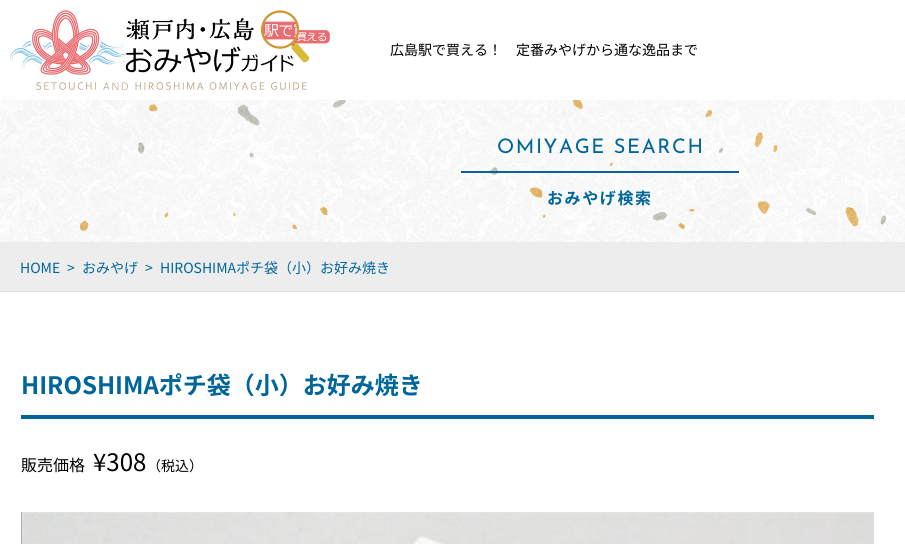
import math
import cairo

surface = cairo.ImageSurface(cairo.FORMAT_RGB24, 905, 544)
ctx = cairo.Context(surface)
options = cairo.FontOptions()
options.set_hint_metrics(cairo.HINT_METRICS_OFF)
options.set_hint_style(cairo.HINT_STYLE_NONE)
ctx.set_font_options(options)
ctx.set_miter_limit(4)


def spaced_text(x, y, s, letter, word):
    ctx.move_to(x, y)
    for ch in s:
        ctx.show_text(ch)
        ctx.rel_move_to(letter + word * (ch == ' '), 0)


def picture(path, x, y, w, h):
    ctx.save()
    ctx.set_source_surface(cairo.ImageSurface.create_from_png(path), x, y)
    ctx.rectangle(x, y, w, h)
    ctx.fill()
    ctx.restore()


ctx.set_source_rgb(1, 1, 1)
ctx.paint()
picture("img1.png", 10, 10, 320, 80)
ctx.select_font_face("Noto Sans JP")
ctx.set_font_size(14)
ctx.set_source_rgb(0, 0, 0)
ctx.move_to(390, 55)
ctx.show_text("広島駅で買える！　定番みやげから通な逸品まで")
picture("img2.png", 0, 100, 905, 142)
ctx.set_source_rgb(0, 0.4, 0.6)
ctx.rectangle(461, 171, 278, 2)
ctx.fill()
ctx.select_font_face("Josefin Sans Thin")
ctx.set_font_size(20)
spaced_text(497, 153, "OMIYAGE SEARCH", 1.6, 0)
ctx.select_font_face("Noto Sans JP", cairo.FONT_SLANT_NORMAL, cairo.FONT_WEIGHT_BOLD)
ctx.set_font_size(16)
spaced_text(547, 204, "おみやげ検索", 1.6, 0)
ctx.set_source_rgb(0.929, 0.929, 0.929)
ctx.rectangle(0, 242, 905, 49)
ctx.fill()
ctx.set_source_rgb(0.867, 0.867, 0.867)
ctx.rectangle(0, 291, 905, 1)
ctx.fill()
ctx.select_font_face("Noto Sans JP")
ctx.set_font_size(14)
ctx.set_source_rgb(0, 0.4, 0.6)
ctx.move_to(20, 273)
ctx.show_text("HOME")
ctx.move_to(67, 273)
ctx.show_text(">")
ctx.move_to(82, 273)
ctx.show_text("おみやげ")
ctx.move_to(145, 273)
ctx.show_text(">")
ctx.move_to(160, 273)
ctx.show_text("HIROSHIMAポチ袋（小）お好み焼き")
ctx.rectangle(21, 415, 853, 4)
ctx.fill()
ctx.select_font_face("Noto Sans JP", cairo.FONT_SLANT_NORMAL, cairo.FONT_WEIGHT_BOLD)
ctx.set_font_size(24)
ctx.move_to(21, 394)
ctx.show_text("HIROSHIMAポチ袋（小）お好み焼き")
ctx.select_font_face("Noto Sans JP")
ctx.set_font_size(16)
ctx.set_source_rgb(0, 0, 0)
ctx.move_to(21, 471)
ctx.show_text("販売価格")
ctx.set_font_size(24)
ctx.move_to(93, 471)
ctx.show_text("¥308")
ctx.set_font_size(14)
ctx.move_to(147, 471)
ctx.show_text("（税込）")
picture("img3.png", 21, 512, 1, 32)
picture("img4.png", 22, 512, 852, 32)
surface.write_to_png("page.png")
